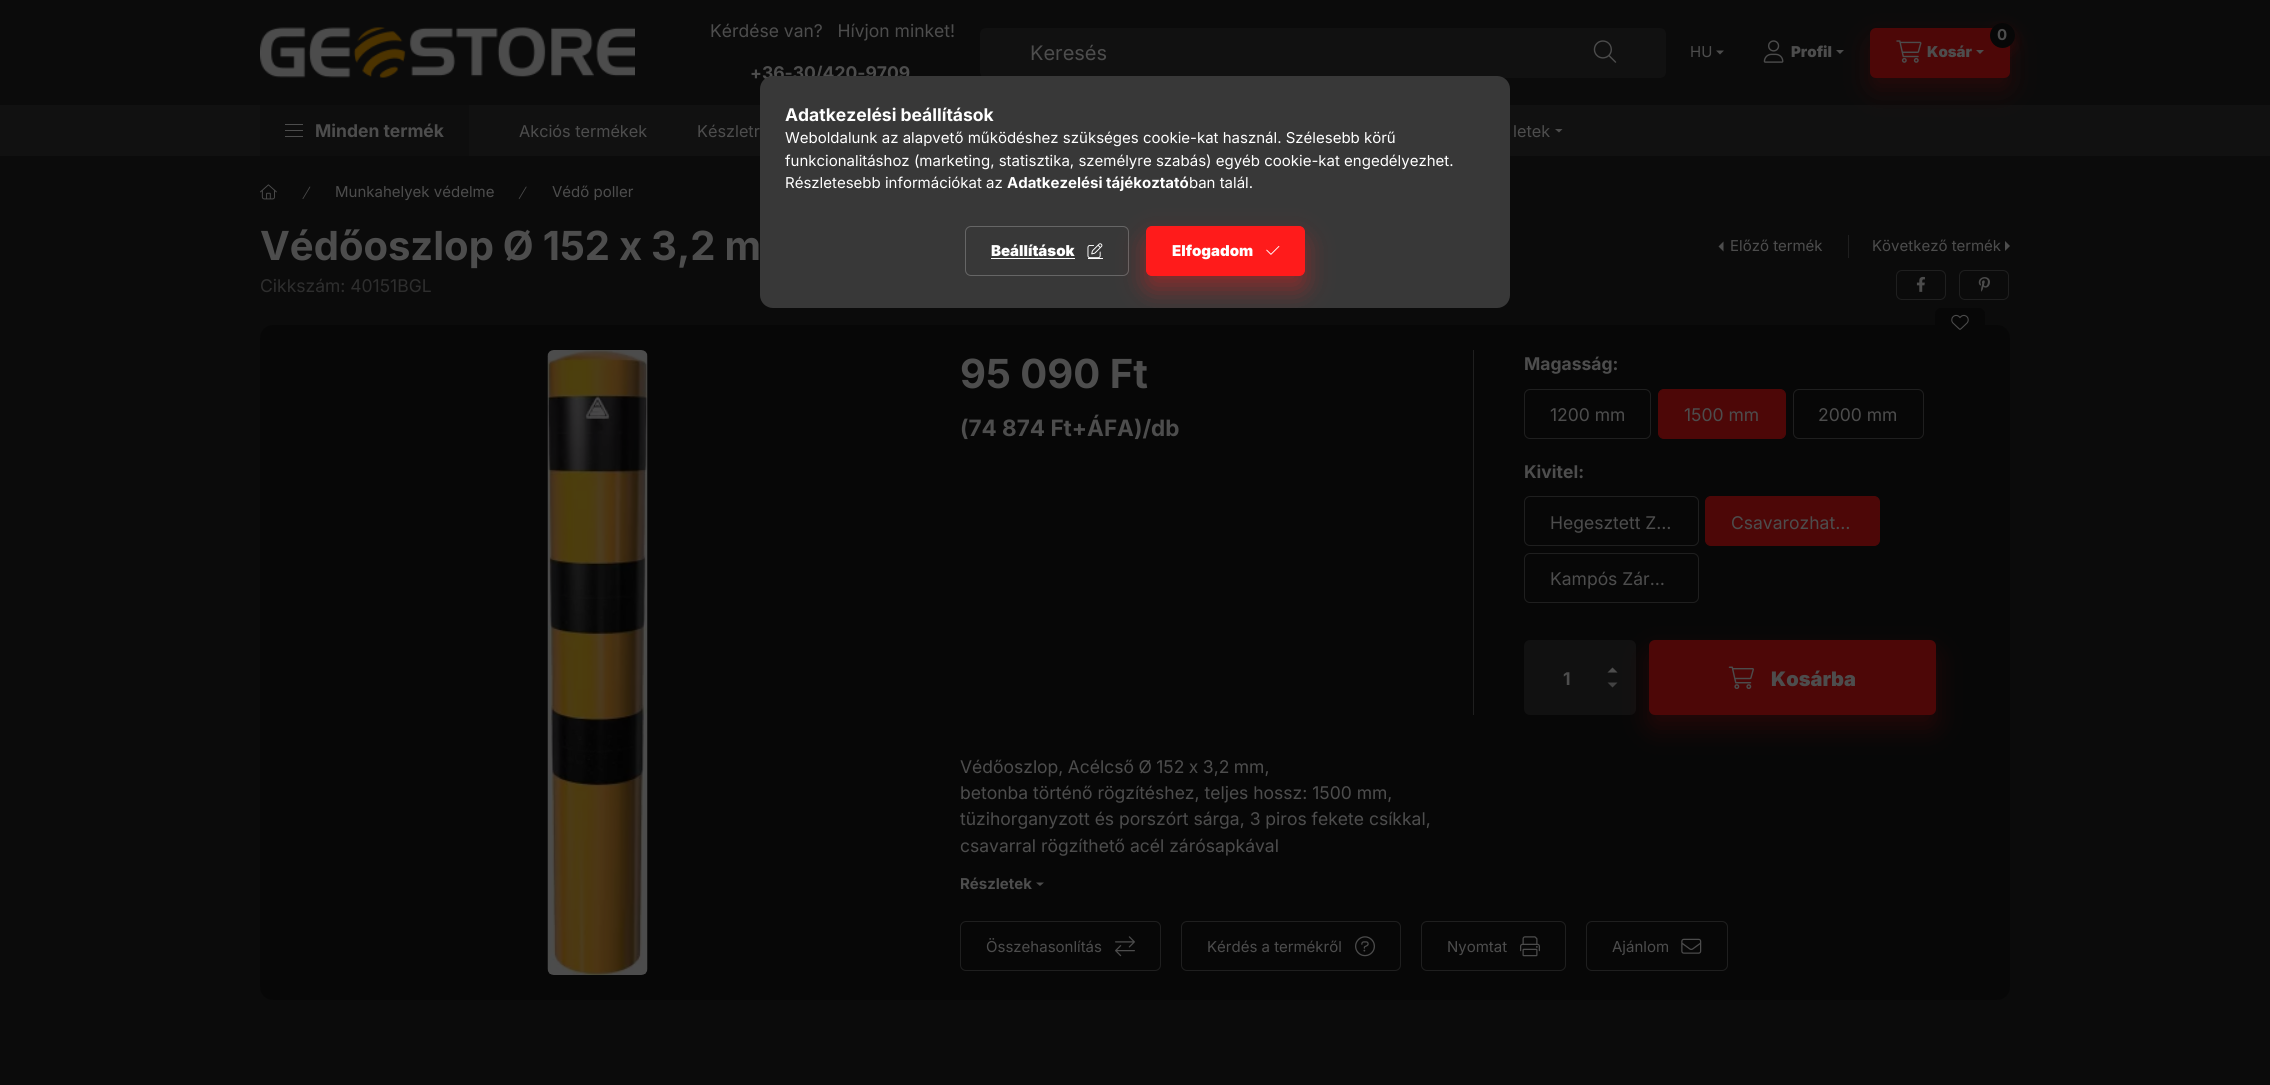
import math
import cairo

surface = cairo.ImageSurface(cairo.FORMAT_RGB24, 2270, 1085)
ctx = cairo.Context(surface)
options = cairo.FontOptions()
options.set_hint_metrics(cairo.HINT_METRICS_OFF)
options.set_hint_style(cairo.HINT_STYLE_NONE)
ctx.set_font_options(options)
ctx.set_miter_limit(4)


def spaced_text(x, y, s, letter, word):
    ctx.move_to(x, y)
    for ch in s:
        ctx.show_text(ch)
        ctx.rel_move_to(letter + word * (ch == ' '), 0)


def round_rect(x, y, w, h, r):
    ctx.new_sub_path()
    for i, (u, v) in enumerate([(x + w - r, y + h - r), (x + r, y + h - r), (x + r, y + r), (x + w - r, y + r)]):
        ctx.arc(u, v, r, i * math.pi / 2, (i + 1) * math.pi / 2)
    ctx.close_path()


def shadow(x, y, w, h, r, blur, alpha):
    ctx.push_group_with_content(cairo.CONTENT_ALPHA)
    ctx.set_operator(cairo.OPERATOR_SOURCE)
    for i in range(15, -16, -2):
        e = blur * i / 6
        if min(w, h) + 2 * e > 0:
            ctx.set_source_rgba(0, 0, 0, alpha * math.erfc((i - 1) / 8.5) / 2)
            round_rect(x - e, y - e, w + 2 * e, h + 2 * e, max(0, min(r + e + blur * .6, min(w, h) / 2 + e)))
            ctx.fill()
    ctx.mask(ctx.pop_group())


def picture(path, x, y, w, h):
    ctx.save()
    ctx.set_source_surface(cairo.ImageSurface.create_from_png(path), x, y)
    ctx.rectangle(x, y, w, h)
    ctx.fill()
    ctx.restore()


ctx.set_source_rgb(0.043, 0.043, 0.043)
ctx.paint()
picture("img1.png", 260, 27, 375, 51)
ctx.select_font_face("Inter")
ctx.set_font_size(17.5)
ctx.set_source_rgb(0.302, 0.302, 0.302)
ctx.move_to(710, 37)
ctx.show_text("Kérdése van?   Hívjon minket!")
ctx.select_font_face("Inter", cairo.FONT_SLANT_NORMAL, cairo.FONT_WEIGHT_BOLD)
ctx.move_to(750, 79)
ctx.show_text("+36-30/420-9709")
ctx.set_source_rgb(0.067, 0.067, 0.067)
round_rect(980, 28, 686, 50, 6)
ctx.fill()
ctx.select_font_face("Inter")
ctx.set_font_size(20)
ctx.set_source_rgb(0.302, 0.302, 0.302)
ctx.move_to(1030, 60)
ctx.show_text("Keresés")
picture("img2.png", 1593, 40, 24, 23)
ctx.set_font_size(15)
ctx.move_to(1690, 57)
ctx.show_text("HU")
ctx.new_path()
ctx.move_to(1716, 50.5)
ctx.line_to(1724, 50.5)
ctx.line_to(1720, 54.5)
ctx.close_path()
ctx.fill()
picture("img3.png", 1763, 40, 21, 23)
ctx.set_source_rgb(0.067, 0.067, 0.067)
ctx.rectangle(0, 105, 2270, 51)
ctx.fill()
ctx.set_source_rgb(0.302, 0.031, 0.031)
shadow(1870, 40, 140, 50, 6, 12.5, 0.4)
ctx.select_font_face("Inter Black")
ctx.set_source_rgb(0.302, 0.302, 0.302)
ctx.move_to(1791, 57)
ctx.show_text("Profil")
ctx.new_path()
ctx.move_to(1836, 50)
ctx.line_to(1844, 50)
ctx.line_to(1840, 54)
ctx.close_path()
ctx.fill()
ctx.set_source_rgb(0.302, 0.031, 0.031)
round_rect(1870, 28, 140, 50, 6)
ctx.fill()
ctx.set_source_rgb(0.302, 0.031, 0.031)
shadow(1990, 29, 25, 25, 12.5, 6, 0.4)
ctx.set_source_rgb(0.031, 0.031, 0.031)
ctx.arc(2002.5, 35.5, 12.5, 0, 2 * math.pi)
ctx.fill()
ctx.select_font_face("Inter", cairo.FONT_SLANT_NORMAL, cairo.FONT_WEIGHT_BOLD)
ctx.set_source_rgb(0.302, 0.302, 0.302)
ctx.move_to(1997, 40)
ctx.show_text("0")
picture("img4.png", 1896, 40, 26, 23)
ctx.select_font_face("Inter Black")
ctx.move_to(1927, 57)
ctx.show_text("Kosár")
ctx.new_path()
ctx.move_to(1976, 50)
ctx.line_to(1984, 50)
ctx.line_to(1980, 54)
ctx.close_path()
ctx.fill()
ctx.set_source_rgb(0.055, 0.055, 0.055)
ctx.rectangle(260, 105, 209, 51)
ctx.fill()
ctx.set_source_rgb(0.302, 0.302, 0.302)
ctx.rectangle(285, 124, 18, 1)
ctx.fill()
ctx.rectangle(285, 130, 18, 1)
ctx.fill()
ctx.rectangle(285, 136, 18, 1)
ctx.fill()
ctx.select_font_face("Inter", cairo.FONT_SLANT_NORMAL, cairo.FONT_WEIGHT_BOLD)
ctx.set_font_size(17.5)
ctx.move_to(315, 137)
ctx.show_text("Minden termék")
ctx.select_font_face("Inter")
ctx.set_font_size(16.25)
ctx.move_to(519, 137)
ctx.show_text("Akciós termékek")
ctx.move_to(697, 137)
ctx.show_text("Készletr")
ctx.move_to(1513, 137)
ctx.show_text("letek")
ctx.new_path()
ctx.move_to(1555, 129)
ctx.line_to(1562.5, 129)
ctx.line_to(1559, 132.5)
ctx.close_path()
ctx.fill()
picture("img5.png", 260, 184, 17, 16)
picture("img6.png", 302, 186, 9, 13)
ctx.set_font_size(15)
ctx.move_to(335, 197)
ctx.show_text("Munkahelyek védelme")
picture("img7.png", 518, 186, 9, 13)
ctx.move_to(552, 197)
ctx.show_text("Védő poller")
ctx.select_font_face("Inter", cairo.FONT_SLANT_NORMAL, cairo.FONT_WEIGHT_BOLD)
ctx.set_font_size(40)
spaced_text(260, 260, "Védőoszlop Ø 152 x 3,2 m", 0, -0.5)
ctx.new_path()
ctx.move_to(1723.5, 251.5)
ctx.line_to(1723.5, 241.5)
ctx.line_to(1718.5, 246.5)
ctx.close_path()
ctx.fill()
ctx.select_font_face("Inter")
ctx.set_font_size(15)
ctx.move_to(1730, 251)
ctx.show_text("Előző termék")
ctx.set_source_rgb(0.122, 0.122, 0.122)
ctx.rectangle(1848, 235, 1, 23)
ctx.fill()
ctx.set_source_rgb(0.302, 0.302, 0.302)
ctx.move_to(1872, 251)
ctx.show_text("Következő termék")
ctx.new_path()
ctx.move_to(2005, 251)
ctx.line_to(2005, 241)
ctx.line_to(2010, 246)
ctx.close_path()
ctx.fill()
ctx.set_font_size(17.5)
ctx.set_source_rgb(0.18, 0.18, 0.18)
ctx.move_to(260, 292)
ctx.show_text("Cikkszám: 40151BGL")
round_rect(1896.5, 270.5, 49, 29, 5.5)
ctx.set_source_rgb(0.122, 0.122, 0.122)
ctx.set_line_width(1)
ctx.stroke()
picture("img8.png", 1916, 276, 9, 16)
round_rect(1959.5, 270.5, 49, 29, 5.5)
ctx.stroke()
picture("img9.png", 1978, 277, 12, 15)
ctx.set_source_rgb(0.031, 0.031, 0.031)
round_rect(260, 325, 1750, 675, 13)
ctx.fill()
round_rect(1935, 308, 50, 30, 6)
ctx.fill()
picture("img10.png", 1951, 314, 18, 16)
picture("img11.png", 547, 350, 101, 625)
ctx.select_font_face("Inter", cairo.FONT_SLANT_NORMAL, cairo.FONT_WEIGHT_BOLD)
ctx.set_font_size(40)
ctx.set_source_rgb(0.302, 0.302, 0.302)
ctx.move_to(960, 388)
ctx.show_text("95 090 Ft")
ctx.set_font_size(22.5)
ctx.move_to(960, 436)
ctx.show_text("(74 874 Ft+ÁFA)/db")
ctx.set_source_rgb(0.122, 0.122, 0.122)
ctx.rectangle(1473, 350, 1, 365)
ctx.fill()
ctx.set_font_size(17.5)
ctx.set_source_rgb(0.302, 0.302, 0.302)
ctx.move_to(1524, 370)
ctx.show_text("Magasság:")
round_rect(1524.5, 389.5, 126, 49, 5.5)
ctx.set_source_rgb(0.122, 0.122, 0.122)
ctx.stroke()
ctx.select_font_face("Inter")
ctx.set_source_rgb(0.302, 0.302, 0.302)
ctx.move_to(1550, 421)
ctx.show_text("1200 mm")
ctx.set_source_rgb(0.302, 0.031, 0.031)
round_rect(1658.5, 389.5, 127, 49, 5.5)
ctx.fill_preserve()
ctx.stroke()
ctx.set_source_rgb(0.302, 0.302, 0.302)
ctx.move_to(1684, 421)
ctx.show_text("1500 mm")
round_rect(1793.5, 389.5, 130, 49, 5.5)
ctx.set_source_rgb(0.122, 0.122, 0.122)
ctx.stroke()
ctx.set_source_rgb(0.302, 0.302, 0.302)
ctx.move_to(1818, 421)
ctx.show_text("2000 mm")
ctx.select_font_face("Inter", cairo.FONT_SLANT_NORMAL, cairo.FONT_WEIGHT_BOLD)
ctx.move_to(1524, 478)
ctx.show_text("Kivitel:")
round_rect(1524.5, 496.5, 174, 49, 5.5)
ctx.set_source_rgb(0.122, 0.122, 0.122)
ctx.stroke()
ctx.select_font_face("Inter")
ctx.set_source_rgb(0.302, 0.302, 0.302)
ctx.move_to(1550, 529)
ctx.show_text("Hegesztett Z…")
ctx.set_source_rgb(0.302, 0.031, 0.031)
round_rect(1705.5, 496.5, 174, 49, 5.5)
ctx.fill_preserve()
ctx.stroke()
ctx.set_source_rgb(0.302, 0.302, 0.302)
ctx.move_to(1731, 529)
ctx.show_text("Csavarozhat…")
round_rect(1524.5, 553.5, 174, 49, 5.5)
ctx.set_source_rgb(0.122, 0.122, 0.122)
ctx.stroke()
ctx.set_source_rgb(0.302, 0.302, 0.302)
ctx.move_to(1550, 585)
ctx.show_text("Kampós Zár…")
ctx.set_source_rgb(0.067, 0.067, 0.067)
round_rect(1524, 640, 112, 75, 6)
ctx.fill()
ctx.select_font_face("Inter", cairo.FONT_SLANT_NORMAL, cairo.FONT_WEIGHT_BOLD)
ctx.set_source_rgb(0.302, 0.302, 0.302)
ctx.move_to(1563, 685)
ctx.show_text("1")
ctx.new_path()
ctx.move_to(1617.5, 672.5)
ctx.line_to(1607.5, 672.5)
ctx.line_to(1612.5, 667.5)
ctx.close_path()
ctx.fill()
ctx.set_source_rgb(0.259, 0.259, 0.259)
ctx.new_path()
ctx.move_to(1607.5, 682.5)
ctx.line_to(1617.5, 682.5)
ctx.line_to(1612.5, 687.5)
ctx.close_path()
ctx.fill()
ctx.set_source_rgb(0.302, 0.031, 0.031)
shadow(1649, 653, 287, 75, 6, 12.5, 0.4)
ctx.set_source_rgb(0.302, 0.031, 0.031)
round_rect(1649, 640, 287, 75, 6)
ctx.fill()
picture("img12.png", 1728, 666, 26, 23)
ctx.select_font_face("Inter Black")
ctx.set_font_size(20)
ctx.set_source_rgb(0.302, 0.302, 0.302)
ctx.move_to(1771, 686)
ctx.show_text("Kosárba")
ctx.select_font_face("Inter")
ctx.set_font_size(17.5)
spaced_text(960, 773, "Védőoszlop, Acélcső Ø 152 x 3,2 mm,", 0, -0.5)
ctx.move_to(960, 799)
ctx.show_text("betonba történő rögzítéshez, teljes hossz: 1500 mm,")
ctx.move_to(960, 825)
ctx.show_text("tüzihorganyzott és porszórt sárga, 3 piros fekete csíkkal,")
ctx.move_to(960, 852)
ctx.show_text("csavarral rögzíthető acél zárósapkával")
ctx.select_font_face("Inter", cairo.FONT_SLANT_NORMAL, cairo.FONT_WEIGHT_BOLD)
ctx.set_font_size(15)
ctx.move_to(960, 889)
ctx.show_text("Részletek")
ctx.new_path()
ctx.move_to(1036, 882.5)
ctx.line_to(1044, 882.5)
ctx.line_to(1040, 886)
ctx.close_path()
ctx.fill()
round_rect(960.5, 921.5, 200, 49, 5.5)
ctx.set_source_rgb(0.122, 0.122, 0.122)
ctx.stroke()
ctx.select_font_face("Inter")
ctx.set_source_rgb(0.302, 0.302, 0.302)
ctx.move_to(986, 952)
ctx.show_text("Összehasonlítás")
picture("img13.png", 1115, 936, 20, 21)
round_rect(1181.5, 921.5, 219, 49, 5.5)
ctx.set_source_rgb(0.122, 0.122, 0.122)
ctx.stroke()
ctx.set_source_rgb(0.302, 0.302, 0.302)
ctx.move_to(1207, 952)
ctx.show_text("Kérdés a termékről")
picture("img14.png", 1355, 936, 20, 21)
round_rect(1421.5, 921.5, 144, 49, 5.5)
ctx.set_source_rgb(0.122, 0.122, 0.122)
ctx.stroke()
ctx.set_source_rgb(0.302, 0.302, 0.302)
ctx.move_to(1447, 952)
ctx.show_text("Nyomtat")
picture("img15.png", 1520, 936, 20, 21)
round_rect(1586.5, 921.5, 141, 49, 5.5)
ctx.set_source_rgb(0.122, 0.122, 0.122)
ctx.stroke()
ctx.set_source_rgb(0.302, 0.302, 0.302)
ctx.move_to(1612, 952)
ctx.show_text("Ajánlom")
picture("img16.png", 1681, 938, 21, 16)
ctx.set_source_rgb(0.22, 0.22, 0.22)
round_rect(760, 76, 750, 232, 13)
ctx.fill()
ctx.select_font_face("Inter", cairo.FONT_SLANT_NORMAL, cairo.FONT_WEIGHT_BOLD)
ctx.set_font_size(17.5)
ctx.set_source_rgb(1, 1, 1)
ctx.move_to(785, 121)
ctx.show_text("Adatkezelési beállítások")
ctx.select_font_face("Inter")
ctx.set_font_size(15)
ctx.move_to(785, 143)
ctx.show_text("Weboldalunk az alapvető működéshez szükséges cookie-kat használ. Szélesebb körű")
ctx.move_to(785, 166)
ctx.show_text("funkcionalitáshoz (marketing, statisztika, személyre szabás) egyéb cookie-kat engedélyezhet.")
ctx.move_to(785, 188)
ctx.show_text("Részletesebb információkat az")
ctx.select_font_face("Inter", cairo.FONT_SLANT_NORMAL, cairo.FONT_WEIGHT_BOLD)
ctx.move_to(1007, 188)
ctx.show_text("Adatkezelési tájékoztató")
ctx.select_font_face("Inter")
ctx.move_to(1189, 188)
ctx.show_text("ban talál.")
round_rect(965.5, 226.5, 163, 49, 5.5)
ctx.set_source_rgb(0.4, 0.4, 0.4)
ctx.stroke()
ctx.select_font_face("Inter Black")
ctx.set_source_rgb(1, 1, 1)
ctx.move_to(991, 256)
ctx.show_text("Beállítások")
ctx.rectangle(991, 258, 84, 1)
ctx.fill()
picture("img17.png", 1087, 243, 16, 15)
ctx.rectangle(1088, 258, 15, 1)
ctx.fill()
ctx.save()
round_rect(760, 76, 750, 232, 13)
ctx.clip()
ctx.set_source_rgb(1, 0.106, 0.106)
shadow(1146, 239, 159, 50, 6, 12.5, 0.4)
ctx.restore()
ctx.set_source_rgb(1, 0.106, 0.106)
round_rect(1146.5, 226.5, 158, 49, 5.5)
ctx.fill_preserve()
ctx.stroke()
ctx.set_source_rgb(1, 1, 1)
ctx.move_to(1172, 256)
ctx.show_text("Elfogadom")
picture("img18.png", 1266, 246, 14, 9)
surface.write_to_png("page.png")
